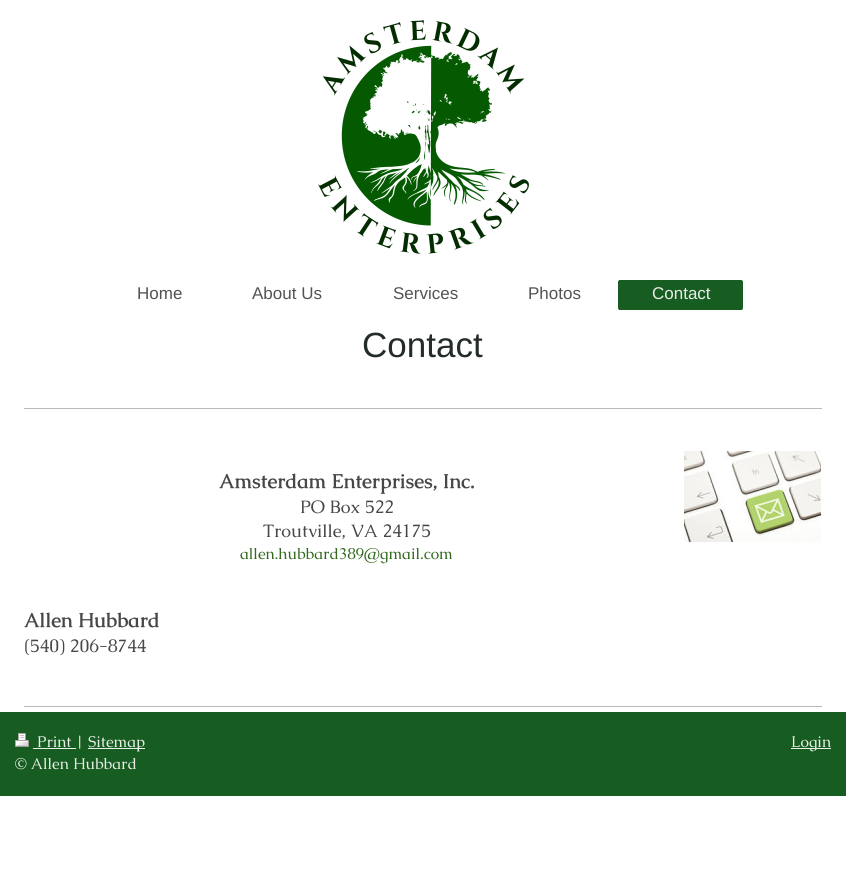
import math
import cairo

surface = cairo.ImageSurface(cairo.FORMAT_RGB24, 846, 896)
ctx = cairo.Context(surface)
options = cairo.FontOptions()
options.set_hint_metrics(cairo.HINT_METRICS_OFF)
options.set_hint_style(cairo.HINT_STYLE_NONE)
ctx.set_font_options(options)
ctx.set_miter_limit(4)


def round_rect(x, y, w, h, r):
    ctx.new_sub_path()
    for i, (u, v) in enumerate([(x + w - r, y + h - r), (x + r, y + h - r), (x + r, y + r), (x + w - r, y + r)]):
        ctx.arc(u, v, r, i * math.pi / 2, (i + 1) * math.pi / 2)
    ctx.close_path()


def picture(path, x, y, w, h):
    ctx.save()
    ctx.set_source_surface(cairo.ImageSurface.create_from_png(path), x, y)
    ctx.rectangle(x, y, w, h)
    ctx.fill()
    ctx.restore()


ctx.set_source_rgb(1, 1, 1)
ctx.paint()
picture("img1.png", 318, 20, 211, 234)
ctx.select_font_face("Liberation Sans")
ctx.set_font_size(17)
ctx.set_source_rgb(0.325, 0.325, 0.325)
ctx.move_to(137, 299)
ctx.show_text("Home")
ctx.move_to(252, 299)
ctx.show_text("About Us")
ctx.move_to(393, 299)
ctx.show_text("Services")
ctx.move_to(528, 299)
ctx.show_text("Photos")
ctx.set_source_rgb(0.09, 0.361, 0.125)
round_rect(618, 280, 125, 30, 2)
ctx.fill()
ctx.rectangle(619, 309, 123, 1)
ctx.fill()
ctx.set_source_rgb(0.91, 0.937, 0.914)
ctx.move_to(652, 299)
ctx.show_text("Contact")
ctx.set_font_size(35)
ctx.set_source_rgb(0.141, 0.169, 0.169)
ctx.move_to(362, 357)
ctx.show_text("Contact")
ctx.set_source_rgb(0.729, 0.729, 0.729)
ctx.rectangle(24, 408, 798, 1)
ctx.fill()
ctx.select_font_face("Caudex", cairo.FONT_SLANT_NORMAL, cairo.FONT_WEIGHT_BOLD)
ctx.set_font_size(20)
ctx.set_source_rgb(0.278, 0.278, 0.278)
ctx.move_to(219, 488)
ctx.show_text("Amsterdam Enterprises, Inc.")
ctx.select_font_face("Caudex")
ctx.set_font_size(18)
ctx.move_to(300, 513)
ctx.show_text("PO Box 522")
ctx.move_to(263, 537)
ctx.show_text("Troutville, VA 24175")
ctx.set_font_size(15.6)
ctx.set_source_rgb(0.196, 0.412, 0.118)
ctx.move_to(240, 559)
ctx.show_text("allen.hubbard389@gmail.com")
ctx.select_font_face("Caudex", cairo.FONT_SLANT_NORMAL, cairo.FONT_WEIGHT_BOLD)
ctx.set_font_size(20)
ctx.set_source_rgb(0.278, 0.278, 0.278)
ctx.move_to(24, 627)
ctx.show_text("Allen Hubbard")
ctx.select_font_face("Caudex")
ctx.set_font_size(18)
ctx.move_to(24, 652)
ctx.show_text("(540) 206-8744")
picture("img2.png", 684, 451, 137, 91)
ctx.set_source_rgb(0.729, 0.729, 0.729)
ctx.rectangle(24, 706, 798, 1)
ctx.fill()
ctx.set_source_rgb(0.09, 0.361, 0.125)
ctx.rectangle(0, 712, 846, 84)
ctx.fill()
picture("img3.png", 15, 733, 14, 14)
ctx.set_source_rgb(0.91, 0.937, 0.914)
ctx.rectangle(33, 748, 43, 1)
ctx.fill()
ctx.set_font_size(15.6)
ctx.move_to(37, 747)
ctx.show_text("Print |")
ctx.rectangle(88, 748, 57, 1)
ctx.fill()
ctx.move_to(88, 747)
ctx.show_text("Sitemap")
ctx.move_to(15, 769)
ctx.show_text("© Allen Hubbard")
ctx.rectangle(791, 748, 40, 1)
ctx.fill()
ctx.move_to(791, 747)
ctx.show_text("Login")
surface.write_to_png("page.png")
